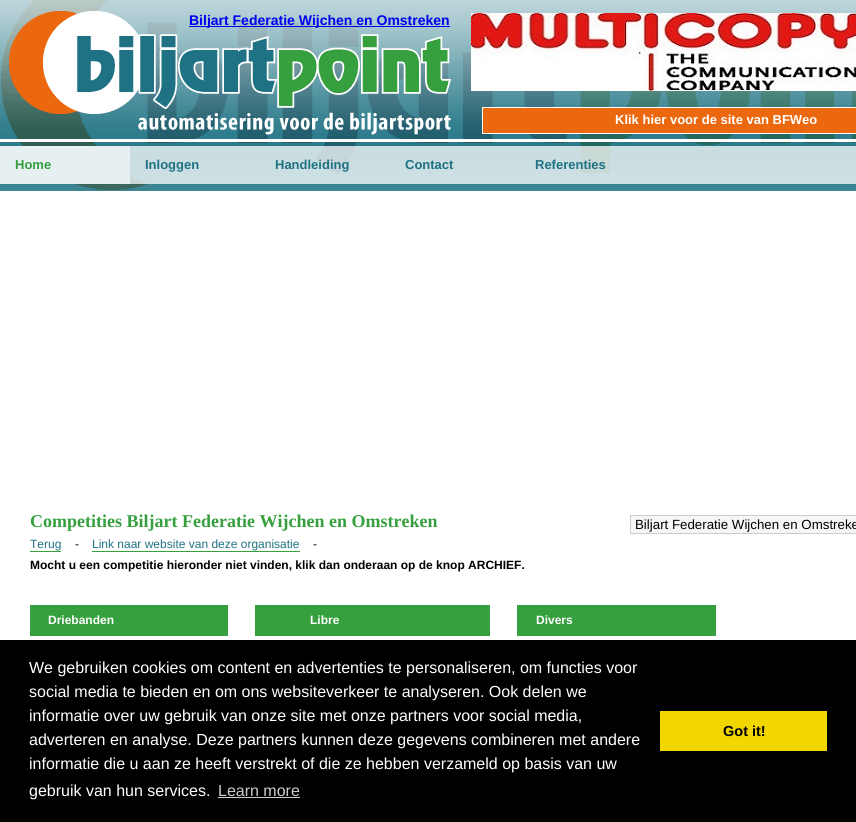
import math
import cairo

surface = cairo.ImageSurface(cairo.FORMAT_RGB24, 856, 822)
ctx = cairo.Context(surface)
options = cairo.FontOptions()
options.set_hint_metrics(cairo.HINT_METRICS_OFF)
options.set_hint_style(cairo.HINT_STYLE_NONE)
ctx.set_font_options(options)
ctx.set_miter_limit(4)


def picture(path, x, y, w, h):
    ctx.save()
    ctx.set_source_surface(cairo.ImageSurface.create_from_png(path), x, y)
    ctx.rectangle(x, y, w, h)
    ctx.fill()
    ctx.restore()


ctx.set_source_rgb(1, 1, 1)
ctx.paint()
picture("img1.png", 0, 0, 856, 191)
picture("img2.png", 1, 0, 855, 190)
ctx.set_source_rgb(0, 0, 0.933)
ctx.rectangle(189, 26, 261, 1)
ctx.fill()
ctx.select_font_face("Liberation Sans", cairo.FONT_SLANT_NORMAL, cairo.FONT_WEIGHT_BOLD)
ctx.set_font_size(14)
ctx.move_to(189, 25)
ctx.show_text("Biljart Federatie Wijchen en Omstreken")
picture("img3.png", 471, 13, 385, 78)
ctx.set_source_rgb(0.922, 0.408, 0.055)
ctx.rectangle(482.5, 107.5, 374, 26)
ctx.fill_preserve()
ctx.set_source_rgb(1, 1, 1)
ctx.set_line_width(1)
ctx.stroke()
ctx.set_font_size(13)
ctx.move_to(615, 124)
ctx.show_text("Klik hier voor de site van BFWeo")
ctx.set_source_rgb(0.902, 0.937, 0.945)
ctx.rectangle(0, 146, 130, 38)
ctx.fill()
ctx.set_source_rgb(0.212, 0.624, 0.243)
ctx.move_to(15, 169)
ctx.show_text("Home")
ctx.set_source_rgb(0.118, 0.447, 0.514)
ctx.move_to(145, 169)
ctx.show_text("Inloggen")
ctx.move_to(275, 169)
ctx.show_text("Handleiding")
ctx.move_to(405, 169)
ctx.show_text("Contact")
ctx.move_to(535, 169)
ctx.show_text("Referenties")
ctx.select_font_face("Liberation Serif", cairo.FONT_SLANT_NORMAL, cairo.FONT_WEIGHT_BOLD)
ctx.set_font_size(18)
ctx.set_source_rgb(0.212, 0.624, 0.243)
ctx.move_to(30, 527)
ctx.show_text("Competities Biljart Federatie Wijchen en Omstreken")
ctx.set_source_rgb(0.961, 0.961, 0.961)
ctx.rectangle(630.5, 515.5, 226, 18)
ctx.fill_preserve()
ctx.set_source_rgb(0.8, 0.8, 0.8)
ctx.stroke()
ctx.select_font_face("Liberation Sans")
ctx.set_font_size(13.3)
ctx.set_source_rgb(0, 0, 0)
ctx.move_to(635, 529)
ctx.show_text("Biljart Federatie Wijchen en Omstreke")
ctx.set_font_size(12)
ctx.set_source_rgb(0.118, 0.447, 0.514)
ctx.move_to(30, 548)
ctx.show_text("Terug")
ctx.set_source_rgb(0.212, 0.624, 0.243)
ctx.rectangle(30, 551, 31, 1)
ctx.fill()
ctx.set_source_rgb(0, 0, 0)
ctx.move_to(75, 548)
ctx.show_text("-")
ctx.set_source_rgb(0.118, 0.447, 0.514)
ctx.move_to(92, 548)
ctx.show_text("Link naar website van deze organisatie")
ctx.set_source_rgb(0.212, 0.624, 0.243)
ctx.rectangle(92, 551, 208, 1)
ctx.fill()
ctx.set_source_rgb(0, 0, 0)
ctx.move_to(313, 548)
ctx.show_text("-")
ctx.select_font_face("Liberation Sans", cairo.FONT_SLANT_NORMAL, cairo.FONT_WEIGHT_BOLD)
ctx.move_to(30, 569)
ctx.show_text("Mocht u een competitie hieronder niet vinden, klik dan onderaan op de knop ARCHIEF.")
ctx.set_source_rgb(0.212, 0.624, 0.243)
ctx.rectangle(30, 605, 198, 31)
ctx.fill()
ctx.set_source_rgb(1, 1, 1)
ctx.move_to(48, 624)
ctx.show_text("Driebanden")
ctx.set_source_rgb(0.212, 0.624, 0.243)
ctx.rectangle(255, 605, 235, 31)
ctx.fill()
ctx.set_source_rgb(1, 1, 1)
ctx.move_to(310, 624)
ctx.show_text("Libre")
ctx.set_source_rgb(0.212, 0.624, 0.243)
ctx.rectangle(517, 605, 199, 31)
ctx.fill()
ctx.set_source_rgb(1, 1, 1)
ctx.move_to(536, 624)
ctx.show_text("Divers")
ctx.set_source_rgb(0, 0, 0)
ctx.rectangle(0, 640, 856, 182)
ctx.fill()
ctx.select_font_face("Liberation Sans")
ctx.set_font_size(16)
ctx.set_source_rgb(1, 1, 1)
ctx.move_to(29, 673)
ctx.show_text("We gebruiken cookies om content en advertenties te personaliseren, om functies voor")
ctx.move_to(29, 697)
ctx.show_text("social media te bieden en om ons websiteverkeer te analyseren. Ook delen we")
ctx.move_to(29, 721)
ctx.show_text("informatie over uw gebruik van onze site met onze partners voor social media,")
ctx.move_to(29, 745)
ctx.show_text("adverteren en analyse. Deze partners kunnen deze gegevens combineren met andere")
ctx.move_to(29, 769)
ctx.show_text("informatie die u aan ze heeft verstrekt of die ze hebben verzameld op basis van uw")
ctx.move_to(29, 796)
ctx.show_text("gebruik van hun services.")
ctx.set_source_rgb(0.8, 0.8, 0.8)
ctx.move_to(218, 796)
ctx.show_text("Learn more")
ctx.rectangle(218, 797, 82, 1)
ctx.fill()
ctx.set_source_rgb(0.945, 0.839, 0)
ctx.rectangle(660, 711, 167, 40)
ctx.fill()
ctx.select_font_face("Liberation Sans", cairo.FONT_SLANT_NORMAL, cairo.FONT_WEIGHT_BOLD)
ctx.set_font_size(14.5)
ctx.set_source_rgb(0, 0, 0)
ctx.move_to(723, 736)
ctx.show_text("Got it!")
surface.write_to_png("page.png")
